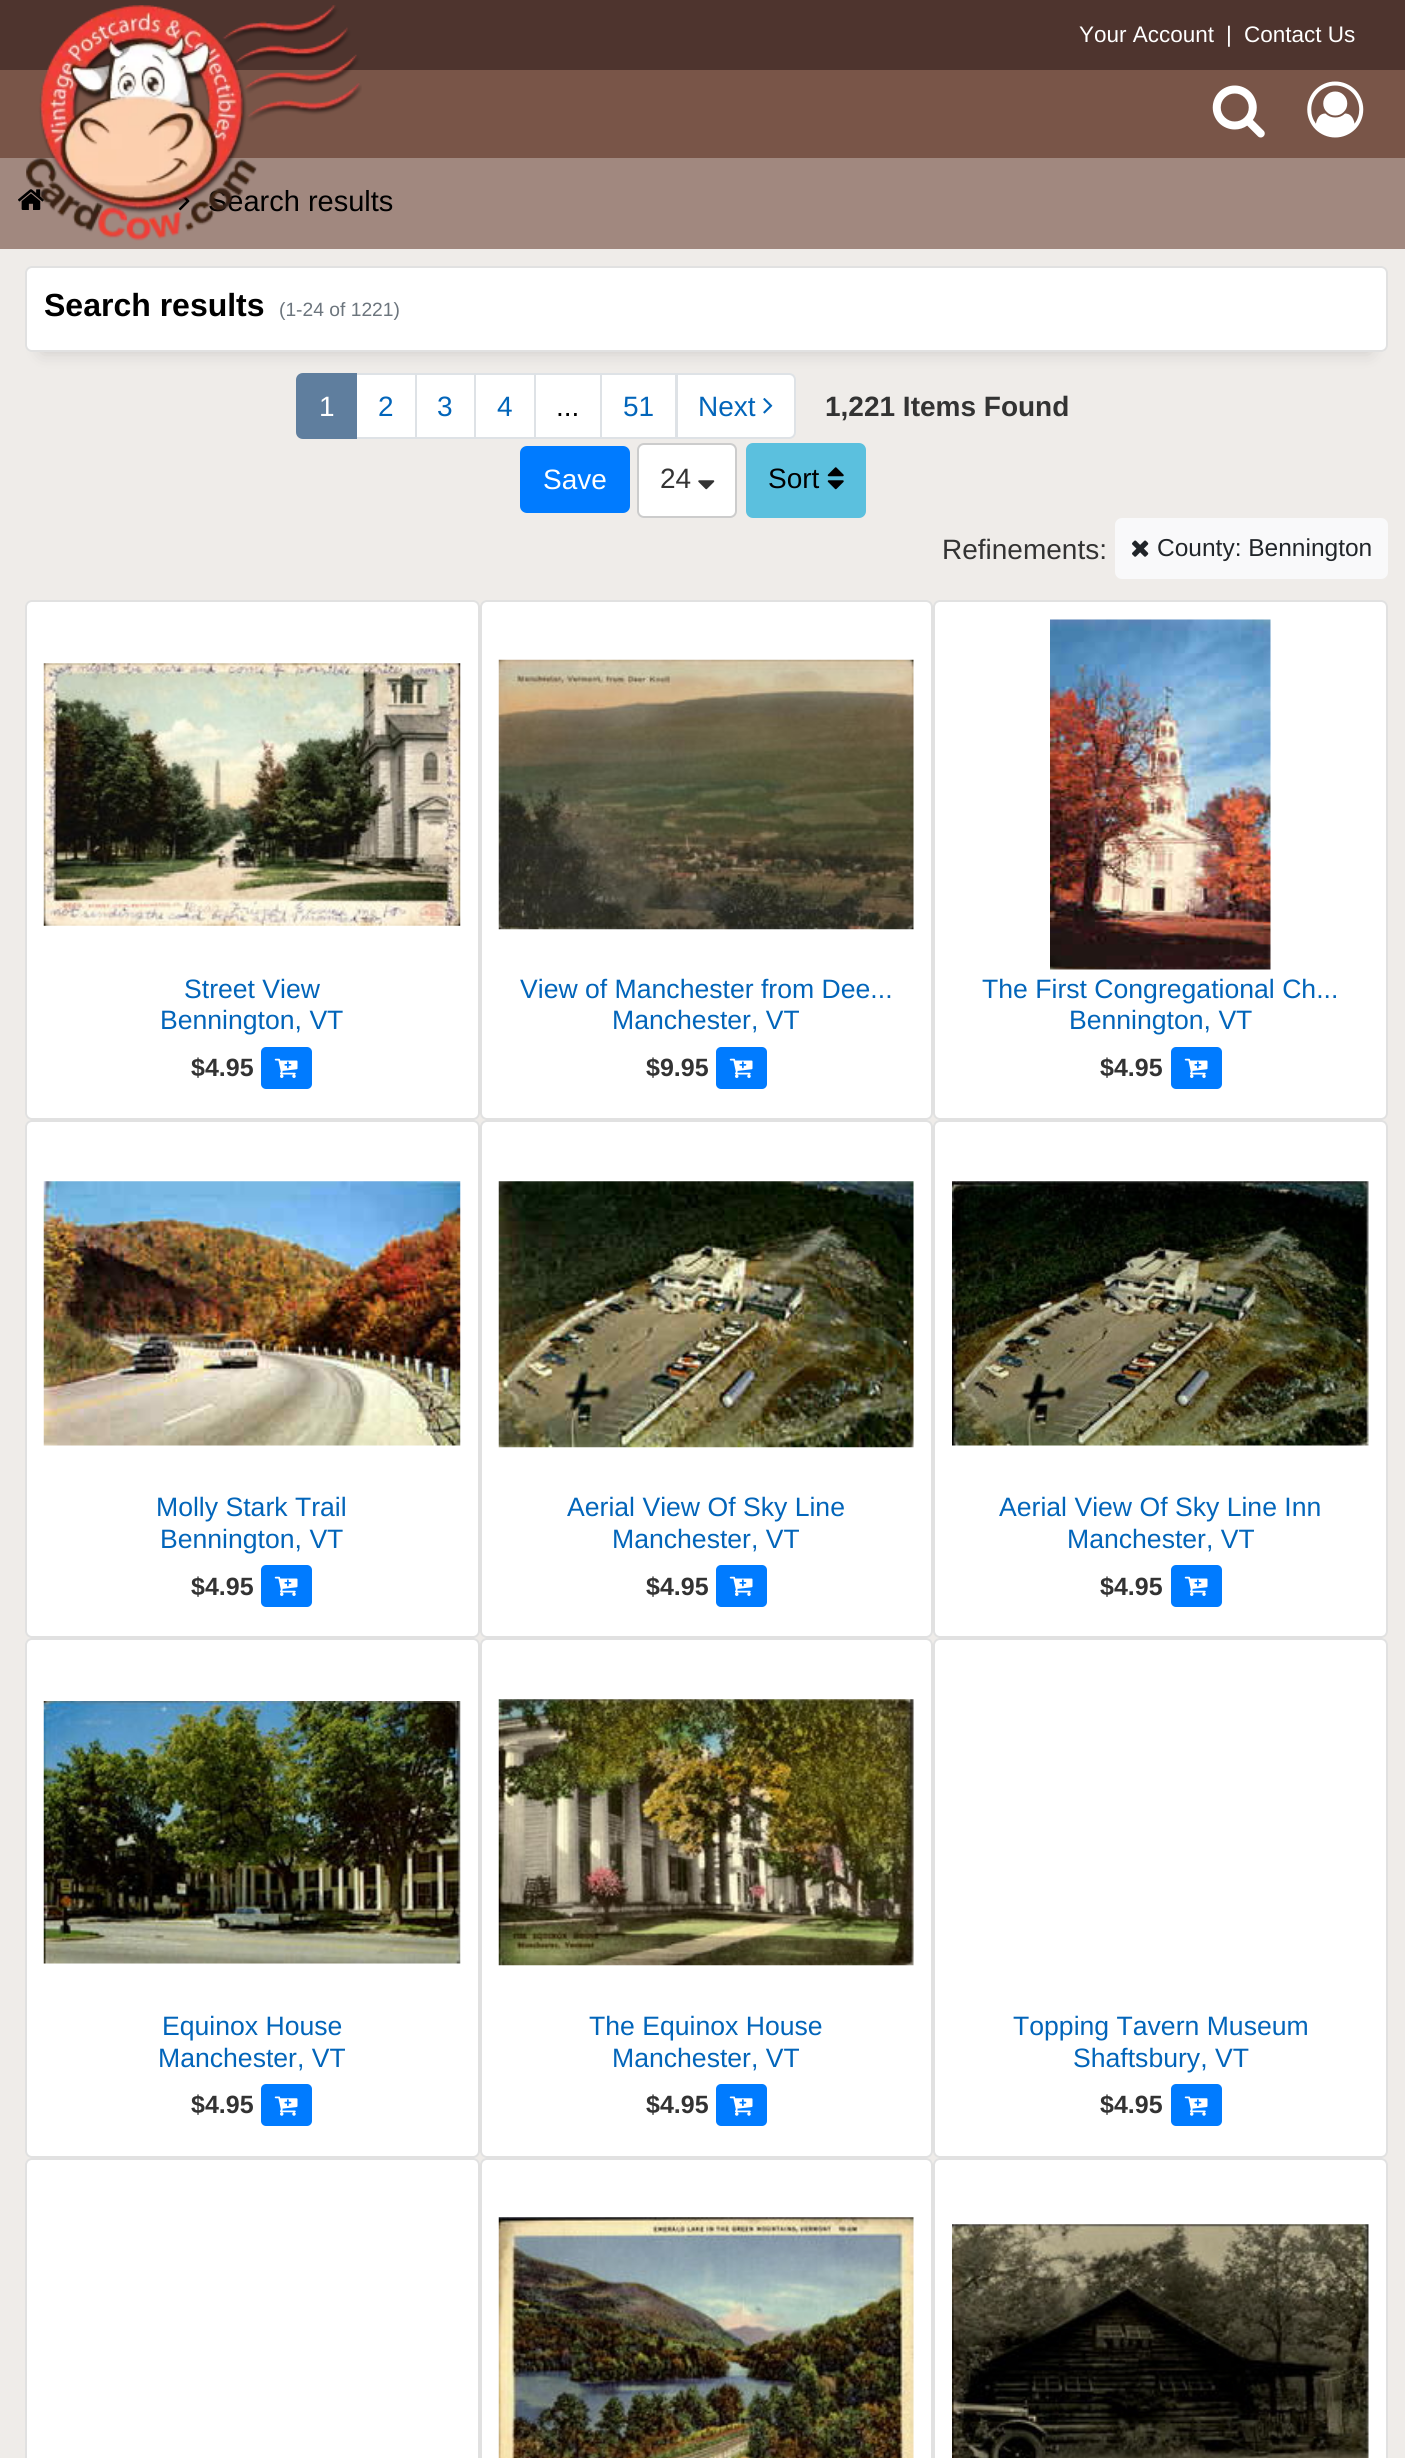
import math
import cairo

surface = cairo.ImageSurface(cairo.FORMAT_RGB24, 1405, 2458)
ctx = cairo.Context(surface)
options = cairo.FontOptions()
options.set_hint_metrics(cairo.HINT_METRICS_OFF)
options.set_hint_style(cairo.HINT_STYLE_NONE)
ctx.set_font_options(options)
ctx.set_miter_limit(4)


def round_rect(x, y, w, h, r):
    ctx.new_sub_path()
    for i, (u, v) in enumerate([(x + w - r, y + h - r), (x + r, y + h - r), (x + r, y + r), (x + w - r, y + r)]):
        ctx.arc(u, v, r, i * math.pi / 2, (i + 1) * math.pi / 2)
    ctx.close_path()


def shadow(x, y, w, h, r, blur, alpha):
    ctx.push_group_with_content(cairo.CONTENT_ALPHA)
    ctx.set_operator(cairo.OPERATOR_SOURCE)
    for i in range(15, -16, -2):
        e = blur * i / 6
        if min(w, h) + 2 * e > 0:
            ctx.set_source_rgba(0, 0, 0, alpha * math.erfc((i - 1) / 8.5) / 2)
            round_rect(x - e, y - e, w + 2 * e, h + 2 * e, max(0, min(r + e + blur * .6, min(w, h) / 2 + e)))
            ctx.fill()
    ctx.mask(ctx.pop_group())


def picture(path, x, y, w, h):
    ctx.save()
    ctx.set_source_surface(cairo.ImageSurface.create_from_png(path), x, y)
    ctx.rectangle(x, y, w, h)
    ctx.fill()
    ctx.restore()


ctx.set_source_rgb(0.631, 0.533, 0.498)
ctx.paint()
ctx.set_source_rgb(0.475, 0.333, 0.282)
ctx.rectangle(0, 70, 1405, 88)
ctx.fill()
ctx.set_source_rgb(0.306, 0.204, 0.18)
ctx.rectangle(0, 0, 1405, 70)
ctx.fill()
picture("img4.png", 18, 189, 26, 21)
picture("img5.png", 178, 195, 12, 16)
ctx.select_font_face("Liberation Sans")
ctx.set_font_size(29)
ctx.set_source_rgb(0, 0, 0)
ctx.move_to(208, 211)
ctx.show_text("Search results")
picture("img1.png", 26, 5, 336, 236)
picture("img2.png", 1212, 85, 53, 53)
picture("img3.png", 1307, 81, 57, 57)
ctx.set_font_size(22.5)
ctx.set_source_rgb(1, 1, 1)
ctx.move_to(1079, 42)
ctx.show_text("Your Account")
ctx.move_to(1226, 42)
ctx.show_text("|")
ctx.move_to(1244, 42)
ctx.show_text("Contact Us")
ctx.set_source_rgb(0.937, 0.922, 0.914)
ctx.rectangle(0, 249, 1405, 2209)
ctx.fill()
ctx.set_source_rgb(0, 0, 0)
shadow(42, 301, 1328, 51, 0, 9, 0.15)
ctx.set_source_rgb(1, 1, 1)
round_rect(25, 266, 1363, 86, 7)
ctx.fill()
round_rect(26, 267, 1361, 84, 6)
ctx.set_source_rgba(0, 0, 0, 0.12)
ctx.stroke()
ctx.select_font_face("Liberation Sans", cairo.FONT_SLANT_NORMAL, cairo.FONT_WEIGHT_BOLD)
ctx.set_font_size(32)
ctx.set_source_rgb(0, 0, 0)
ctx.move_to(44, 316)
ctx.show_text("Search results")
ctx.select_font_face("Liberation Sans")
ctx.set_font_size(19.25)
ctx.set_source_rgb(0.424, 0.459, 0.49)
ctx.move_to(279, 316)
ctx.show_text("(1-24 of 1221)")
ctx.set_source_rgb(1, 1, 1)
ctx.rectangle(356, 374, 60, 64)
ctx.fill_preserve()
ctx.set_source_rgb(0.871, 0.886, 0.902)
ctx.stroke()
ctx.set_source_rgb(0.373, 0.494, 0.62)
ctx.new_path()
ctx.move_to(303, 374)
ctx.line_to(356, 374)
ctx.line_to(356, 438)
ctx.line_to(303, 438)
ctx.curve_to(299.5, 438, 297, 435.5, 297, 432)
ctx.line_to(297, 380)
ctx.curve_to(297, 376.5, 299.5, 374, 303, 374)
ctx.close_path()
ctx.fill_preserve()
ctx.stroke()
ctx.set_font_size(28)
ctx.set_source_rgb(1, 1, 1)
ctx.move_to(319, 416)
ctx.show_text("1")
ctx.set_source_rgb(0.008, 0.396, 0.729)
ctx.move_to(378, 416)
ctx.show_text("2")
ctx.set_source_rgb(1, 1, 1)
ctx.rectangle(416, 374, 59, 64)
ctx.fill_preserve()
ctx.set_source_rgb(0.871, 0.886, 0.902)
ctx.stroke()
ctx.set_source_rgb(0.008, 0.396, 0.729)
ctx.move_to(437, 416)
ctx.show_text("3")
ctx.set_source_rgb(1, 1, 1)
ctx.rectangle(475, 374, 60, 64)
ctx.fill_preserve()
ctx.set_source_rgb(0.871, 0.886, 0.902)
ctx.stroke()
ctx.set_source_rgb(0.008, 0.396, 0.729)
ctx.move_to(497, 416)
ctx.show_text("4")
ctx.set_source_rgb(1, 1, 1)
ctx.rectangle(535, 374, 66, 64)
ctx.fill_preserve()
ctx.set_source_rgb(0.871, 0.886, 0.902)
ctx.stroke()
ctx.set_source_rgb(0, 0, 0)
ctx.move_to(556, 416)
ctx.show_text("...")
ctx.set_source_rgb(1, 1, 1)
ctx.rectangle(601, 374, 75, 64)
ctx.fill_preserve()
ctx.set_source_rgb(0.871, 0.886, 0.902)
ctx.stroke()
ctx.set_source_rgb(0.008, 0.396, 0.729)
ctx.move_to(623, 416)
ctx.show_text("51")
ctx.set_source_rgb(1, 1, 1)
ctx.new_path()
ctx.move_to(677, 374)
ctx.line_to(789, 374)
ctx.curve_to(792.5, 374, 795, 376.5, 795, 380)
ctx.line_to(795, 432)
ctx.curve_to(795, 435.5, 792.5, 438, 789, 438)
ctx.line_to(677, 438)
ctx.close_path()
ctx.fill_preserve()
ctx.set_source_rgb(0.871, 0.886, 0.902)
ctx.stroke()
ctx.set_source_rgb(0.008, 0.396, 0.729)
ctx.move_to(698, 416)
ctx.show_text("Next")
picture("img6.png", 763, 398, 10, 16)
ctx.select_font_face("Liberation Sans", cairo.FONT_SLANT_NORMAL, cairo.FONT_WEIGHT_BOLD)
ctx.set_source_rgb(0.2, 0.2, 0.2)
ctx.move_to(825, 416)
ctx.show_text("1,221 Items Found")
ctx.set_source_rgb(0, 0.482, 1)
round_rect(521, 447, 108, 65, 6)
ctx.fill_preserve()
ctx.stroke()
ctx.select_font_face("Liberation Sans")
ctx.set_source_rgb(1, 1, 1)
ctx.move_to(543, 489)
ctx.show_text("Save")
round_rect(638, 444, 98, 73, 6)
ctx.fill_preserve()
ctx.set_source_rgb(0.8, 0.8, 0.8)
ctx.stroke()
ctx.set_source_rgb(0.2, 0.2, 0.2)
ctx.move_to(660, 488)
ctx.show_text("24")
picture("img7.png", 698, 480, 17, 10)
ctx.set_source_rgb(0.357, 0.753, 0.871)
round_rect(747, 444, 118, 73, 6)
ctx.fill_preserve()
ctx.stroke()
ctx.set_source_rgb(0, 0, 0)
ctx.move_to(768, 488)
ctx.show_text("Sort")
picture("img8.png", 827, 467, 17, 23)
ctx.set_source_rgb(0.2, 0.2, 0.2)
ctx.move_to(942, 559)
ctx.show_text("Refinements:")
ctx.set_source_rgb(0.973, 0.976, 0.98)
round_rect(1116, 519, 271, 59, 6)
ctx.fill_preserve()
ctx.stroke()
picture("img9.png", 1132, 540, 17, 17)
ctx.set_font_size(24.5)
ctx.set_source_rgb(0.129, 0.145, 0.161)
ctx.move_to(1157, 556)
ctx.show_text("County: Bennington")
ctx.set_source_rgb(1, 1, 1)
round_rect(25, 600, 455, 520, 7)
ctx.fill()
round_rect(26, 601, 453, 518, 6)
ctx.set_source_rgba(0, 0, 0, 0.12)
ctx.stroke()
picture("img10.png", 43, 663, 418, 263)
ctx.set_font_size(26.6)
ctx.set_source_rgb(0.008, 0.396, 0.729)
ctx.move_to(184, 998)
ctx.show_text("Street View")
ctx.move_to(160, 1029)
ctx.show_text("Bennington, VT")
ctx.select_font_face("Liberation Sans", cairo.FONT_SLANT_NORMAL, cairo.FONT_WEIGHT_BOLD)
ctx.set_font_size(25)
ctx.set_source_rgb(0.2, 0.2, 0.2)
ctx.move_to(191, 1076)
ctx.show_text("$4.95")
ctx.set_source_rgb(0, 0.482, 1)
round_rect(261, 1047, 51, 42, 5)
ctx.fill()
picture("img11.png", 274, 1058, 24, 20)
ctx.set_source_rgb(1, 1, 1)
round_rect(480, 600, 453, 520, 7)
ctx.fill()
round_rect(481, 601, 451, 518, 6)
ctx.set_source_rgba(0, 0, 0, 0.12)
ctx.stroke()
picture("img12.png", 498, 659, 416, 271)
ctx.select_font_face("Liberation Sans")
ctx.set_font_size(26.6)
ctx.set_source_rgb(0.008, 0.396, 0.729)
ctx.move_to(520, 998)
ctx.show_text("View of Manchester from Dee...")
ctx.move_to(612, 1029)
ctx.show_text("Manchester, VT")
ctx.select_font_face("Liberation Sans", cairo.FONT_SLANT_NORMAL, cairo.FONT_WEIGHT_BOLD)
ctx.set_font_size(25)
ctx.set_source_rgb(0.2, 0.2, 0.2)
ctx.move_to(646, 1076)
ctx.show_text("$9.95")
ctx.set_source_rgb(0, 0.482, 1)
round_rect(716, 1047, 51, 42, 5)
ctx.fill()
picture("img11.png", 729, 1058, 24, 20)
ctx.set_source_rgb(1, 1, 1)
round_rect(933, 600, 455, 520, 7)
ctx.fill()
round_rect(934, 601, 453, 518, 6)
ctx.set_source_rgba(0, 0, 0, 0.12)
ctx.stroke()
picture("img13.png", 1050, 619, 221, 351)
ctx.select_font_face("Liberation Sans")
ctx.set_font_size(26.6)
ctx.set_source_rgb(0.008, 0.396, 0.729)
ctx.move_to(982, 998)
ctx.show_text("The First Congregational Ch...")
ctx.move_to(1069, 1029)
ctx.show_text("Bennington, VT")
ctx.select_font_face("Liberation Sans", cairo.FONT_SLANT_NORMAL, cairo.FONT_WEIGHT_BOLD)
ctx.set_font_size(25)
ctx.set_source_rgb(0.2, 0.2, 0.2)
ctx.move_to(1100, 1076)
ctx.show_text("$4.95")
ctx.set_source_rgb(0, 0.482, 1)
round_rect(1171, 1047, 51, 42, 5)
ctx.fill()
picture("img11.png", 1184, 1058, 24, 20)
ctx.set_source_rgb(1, 1, 1)
round_rect(25, 1120, 455, 518, 7)
ctx.fill()
round_rect(26, 1121, 453, 516, 6)
ctx.set_source_rgba(0, 0, 0, 0.12)
ctx.stroke()
picture("img14.png", 43, 1181, 418, 265)
ctx.select_font_face("Liberation Sans")
ctx.set_font_size(26.6)
ctx.set_source_rgb(0.008, 0.396, 0.729)
ctx.move_to(156, 1516)
ctx.show_text("Molly Stark Trail")
ctx.move_to(160, 1548)
ctx.show_text("Bennington, VT")
ctx.select_font_face("Liberation Sans", cairo.FONT_SLANT_NORMAL, cairo.FONT_WEIGHT_BOLD)
ctx.set_font_size(25)
ctx.set_source_rgb(0.2, 0.2, 0.2)
ctx.move_to(191, 1595)
ctx.show_text("$4.95")
ctx.set_source_rgb(0, 0.482, 1)
round_rect(261, 1565, 51, 42, 5)
ctx.fill()
picture("img11.png", 274, 1576, 24, 20)
ctx.set_source_rgb(1, 1, 1)
round_rect(480, 1120, 453, 518, 7)
ctx.fill()
round_rect(481, 1121, 451, 516, 6)
ctx.set_source_rgba(0, 0, 0, 0.12)
ctx.stroke()
picture("img15.png", 498, 1181, 416, 267)
ctx.select_font_face("Liberation Sans")
ctx.set_font_size(26.6)
ctx.set_source_rgb(0.008, 0.396, 0.729)
ctx.move_to(567, 1516)
ctx.show_text("Aerial View Of Sky Line")
ctx.move_to(612, 1548)
ctx.show_text("Manchester, VT")
ctx.select_font_face("Liberation Sans", cairo.FONT_SLANT_NORMAL, cairo.FONT_WEIGHT_BOLD)
ctx.set_font_size(25)
ctx.set_source_rgb(0.2, 0.2, 0.2)
ctx.move_to(646, 1595)
ctx.show_text("$4.95")
ctx.set_source_rgb(0, 0.482, 1)
round_rect(716, 1565, 51, 42, 5)
ctx.fill()
picture("img11.png", 729, 1576, 24, 20)
ctx.set_source_rgb(1, 1, 1)
round_rect(933, 1120, 455, 518, 7)
ctx.fill()
round_rect(934, 1121, 453, 516, 6)
ctx.set_source_rgba(0, 0, 0, 0.12)
ctx.stroke()
picture("img16.png", 952, 1181, 417, 265)
ctx.select_font_face("Liberation Sans")
ctx.set_font_size(26.6)
ctx.set_source_rgb(0.008, 0.396, 0.729)
ctx.move_to(999, 1516)
ctx.show_text("Aerial View Of Sky Line Inn")
ctx.move_to(1067, 1548)
ctx.show_text("Manchester, VT")
ctx.select_font_face("Liberation Sans", cairo.FONT_SLANT_NORMAL, cairo.FONT_WEIGHT_BOLD)
ctx.set_font_size(25)
ctx.set_source_rgb(0.2, 0.2, 0.2)
ctx.move_to(1100, 1595)
ctx.show_text("$4.95")
ctx.set_source_rgb(0, 0.482, 1)
round_rect(1171, 1565, 51, 42, 5)
ctx.fill()
picture("img11.png", 1184, 1576, 24, 20)
ctx.set_source_rgb(1, 1, 1)
round_rect(25, 1638, 455, 520, 7)
ctx.fill()
round_rect(26, 1639, 453, 518, 6)
ctx.set_source_rgba(0, 0, 0, 0.12)
ctx.stroke()
picture("img17.png", 43, 1701, 418, 263)
ctx.select_font_face("Liberation Sans")
ctx.set_font_size(26.6)
ctx.set_source_rgb(0.008, 0.396, 0.729)
ctx.move_to(162, 2035)
ctx.show_text("Equinox House")
ctx.move_to(158, 2067)
ctx.show_text("Manchester, VT")
ctx.select_font_face("Liberation Sans", cairo.FONT_SLANT_NORMAL, cairo.FONT_WEIGHT_BOLD)
ctx.set_font_size(25)
ctx.set_source_rgb(0.2, 0.2, 0.2)
ctx.move_to(191, 2113)
ctx.show_text("$4.95")
ctx.set_source_rgb(0, 0.482, 1)
round_rect(261, 2084, 51, 42, 5)
ctx.fill()
picture("img18.png", 274, 2096, 24, 20)
ctx.set_source_rgb(1, 1, 1)
round_rect(480, 1638, 453, 520, 7)
ctx.fill()
round_rect(481, 1639, 451, 518, 6)
ctx.set_source_rgba(0, 0, 0, 0.12)
ctx.stroke()
picture("img19.png", 498, 1699, 416, 267)
ctx.select_font_face("Liberation Sans")
ctx.set_font_size(26.6)
ctx.set_source_rgb(0.008, 0.396, 0.729)
ctx.move_to(589, 2035)
ctx.show_text("The Equinox House")
ctx.move_to(612, 2067)
ctx.show_text("Manchester, VT")
ctx.select_font_face("Liberation Sans", cairo.FONT_SLANT_NORMAL, cairo.FONT_WEIGHT_BOLD)
ctx.set_font_size(25)
ctx.set_source_rgb(0.2, 0.2, 0.2)
ctx.move_to(646, 2113)
ctx.show_text("$4.95")
ctx.set_source_rgb(0, 0.482, 1)
round_rect(716, 2084, 51, 42, 5)
ctx.fill()
picture("img18.png", 729, 2096, 24, 20)
ctx.set_source_rgb(1, 1, 1)
round_rect(933, 1638, 455, 520, 7)
ctx.fill()
round_rect(934, 1639, 453, 518, 6)
ctx.set_source_rgba(0, 0, 0, 0.12)
ctx.stroke()
ctx.select_font_face("Liberation Sans")
ctx.set_font_size(26.6)
ctx.set_source_rgb(0.008, 0.396, 0.729)
ctx.move_to(1013, 2035)
ctx.show_text("Topping Tavern Museum")
ctx.move_to(1073, 2067)
ctx.show_text("Shaftsbury, VT")
ctx.select_font_face("Liberation Sans", cairo.FONT_SLANT_NORMAL, cairo.FONT_WEIGHT_BOLD)
ctx.set_font_size(25)
ctx.set_source_rgb(0.2, 0.2, 0.2)
ctx.move_to(1100, 2113)
ctx.show_text("$4.95")
ctx.set_source_rgb(0, 0.482, 1)
round_rect(1171, 2084, 51, 42, 5)
ctx.fill()
picture("img18.png", 1184, 2096, 24, 20)
ctx.set_source_rgb(1, 1, 1)
round_rect(25, 2158, 455, 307, 7)
ctx.fill()
round_rect(26, 2159, 453, 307, 6)
ctx.set_source_rgba(0, 0, 0, 0.12)
ctx.stroke()
ctx.set_source_rgb(1, 1, 1)
round_rect(480, 2158, 453, 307, 7)
ctx.fill()
round_rect(481, 2159, 451, 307, 6)
ctx.set_source_rgba(0, 0, 0, 0.12)
ctx.stroke()
picture("img20.png", 498, 2217, 416, 241)
ctx.set_source_rgb(1, 1, 1)
round_rect(933, 2158, 455, 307, 7)
ctx.fill()
round_rect(934, 2159, 453, 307, 6)
ctx.set_source_rgba(0, 0, 0, 0.12)
ctx.stroke()
picture("img21.png", 952, 2224, 417, 234)
surface.write_to_png("page.png")
